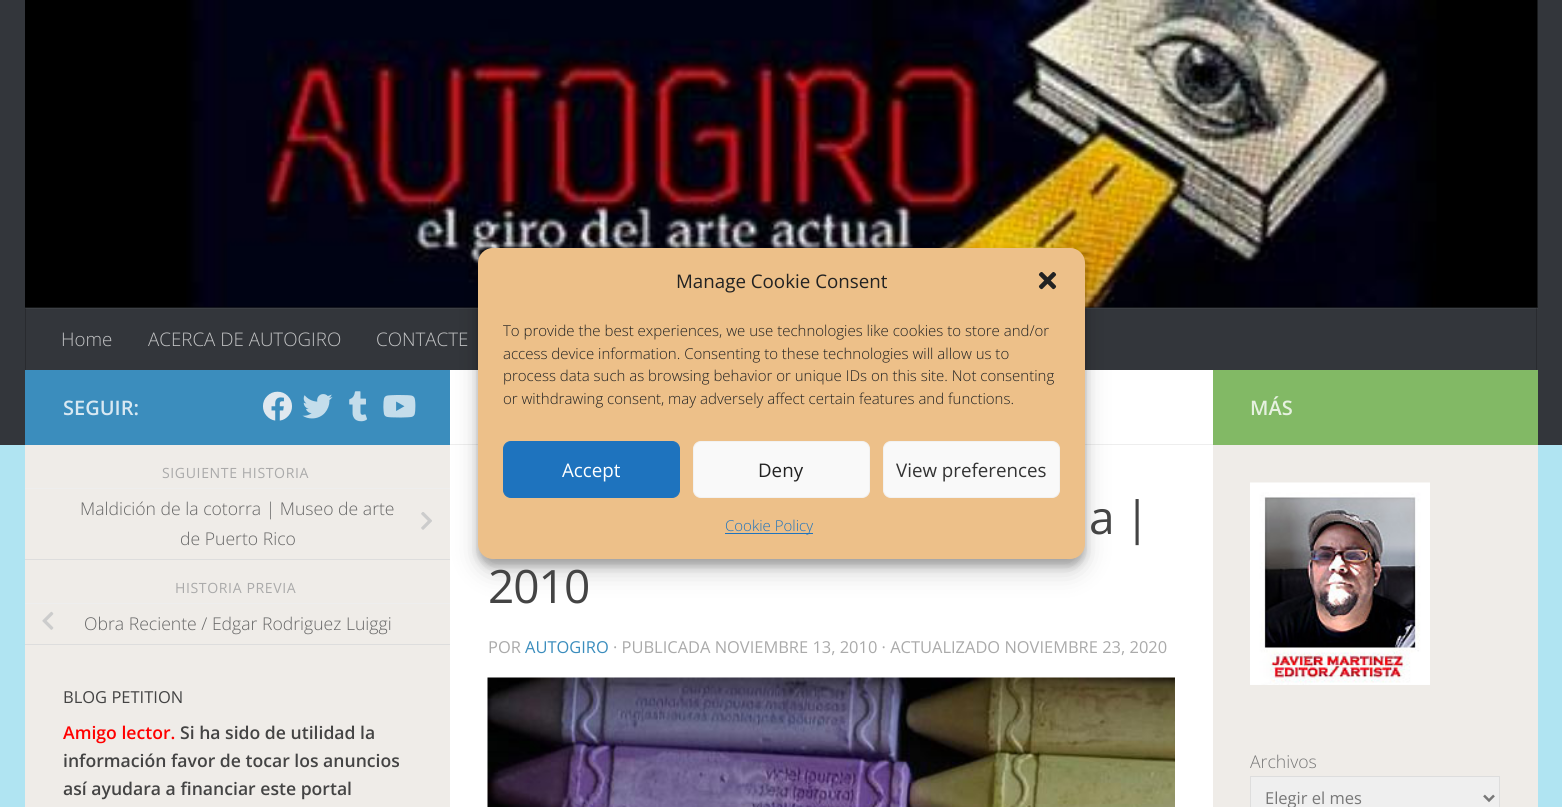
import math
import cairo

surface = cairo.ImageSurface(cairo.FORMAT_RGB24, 1562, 807)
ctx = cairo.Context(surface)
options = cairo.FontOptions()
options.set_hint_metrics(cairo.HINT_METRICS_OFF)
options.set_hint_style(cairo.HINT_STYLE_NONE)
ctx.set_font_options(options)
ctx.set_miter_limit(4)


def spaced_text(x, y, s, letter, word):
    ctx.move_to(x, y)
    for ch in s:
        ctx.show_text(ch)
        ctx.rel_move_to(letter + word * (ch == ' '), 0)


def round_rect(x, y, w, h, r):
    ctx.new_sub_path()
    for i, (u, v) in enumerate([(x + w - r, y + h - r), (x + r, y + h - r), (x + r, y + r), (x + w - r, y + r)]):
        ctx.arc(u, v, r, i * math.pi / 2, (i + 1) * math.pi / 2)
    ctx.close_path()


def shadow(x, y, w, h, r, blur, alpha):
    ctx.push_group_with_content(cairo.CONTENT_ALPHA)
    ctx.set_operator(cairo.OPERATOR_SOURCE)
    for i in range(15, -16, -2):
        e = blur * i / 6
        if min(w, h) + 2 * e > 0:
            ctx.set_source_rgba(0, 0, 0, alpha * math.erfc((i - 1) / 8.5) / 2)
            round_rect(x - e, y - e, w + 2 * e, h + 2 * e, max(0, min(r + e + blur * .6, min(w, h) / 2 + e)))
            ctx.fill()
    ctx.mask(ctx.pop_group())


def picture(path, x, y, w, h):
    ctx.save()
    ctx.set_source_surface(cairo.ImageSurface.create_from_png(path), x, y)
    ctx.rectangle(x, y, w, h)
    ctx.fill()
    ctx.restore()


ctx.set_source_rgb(0.69, 0.894, 0.949)
ctx.paint()
ctx.set_source_rgb(0.2, 0.212, 0.231)
ctx.rectangle(0, 0, 1562, 445)
ctx.fill()
ctx.set_source_rgb(0.239, 0.251, 0.271)
ctx.rectangle(25, 308, 1513, 1)
ctx.fill()
picture("img2.png", 25, 0, 1513, 308)
ctx.set_source_rgba(0, 0, 0, 0.2)
ctx.new_path()
ctx.move_to(25, 306)
ctx.line_to(25, 308)
ctx.line_to(1538, 308)
ctx.line_to(1538, 369)
ctx.line_to(1538, 306)
ctx.close_path()
ctx.fill()
ctx.set_source_rgb(1, 1, 1)
ctx.rectangle(450, 370, 763, 437)
ctx.fill()
ctx.set_source_rgb(0.933, 0.933, 0.933)
ctx.rectangle(450, 444, 763, 1)
ctx.fill()
ctx.set_source_rgb(0, 0, 0)
shadow(478, 255, 607, 311, 15, 4, 0.23)
ctx.set_source_rgb(0.231, 0.553, 0.741)
ctx.rectangle(25, 370, 425, 75)
ctx.fill()
ctx.set_source_rgb(0.937, 0.925, 0.91)
ctx.rectangle(25, 445, 425, 362)
ctx.fill()
ctx.set_source_rgb(0.933, 0.933, 0.933)
ctx.rectangle(25, 488, 425, 1)
ctx.fill()
ctx.set_source_rgb(0.867, 0.867, 0.867)
ctx.rectangle(25, 559, 425, 1)
ctx.fill()
ctx.set_source_rgb(0.933, 0.933, 0.933)
ctx.rectangle(25, 603, 425, 1)
ctx.fill()
ctx.set_source_rgb(0, 0, 0)
shadow(478, 260, 607, 311, 15, 12.5, 0.19)
ctx.set_source_rgb(0.929, 0.753, 0.537)
round_rect(478, 248, 607, 311, 15)
ctx.fill()
ctx.select_font_face("Open Sans")
ctx.set_font_size(18.75)
ctx.set_source_rgb(0.133, 0.133, 0.133)
ctx.move_to(676, 288)
ctx.show_text("Manage Cookie Consent")
picture("img1.png", 1038, 272, 19, 18)
ctx.select_font_face("Open Sans Light")
ctx.set_font_size(15)
ctx.move_to(503, 336)
ctx.show_text("To provide the best experiences, we use technologies like cookies to store and/or")
ctx.move_to(503, 359)
ctx.show_text("access device information. Consenting to these technologies will allow us to")
ctx.move_to(503, 381)
ctx.show_text("process data such as browsing behavior or unique IDs on this site. Not consenting")
ctx.move_to(503, 404)
ctx.show_text("or withdrawing consent, may adversely affect certain features and functions.")
ctx.set_source_rgb(0.118, 0.451, 0.745)
round_rect(503.5, 441.5, 176, 56, 7.5)
ctx.fill_preserve()
ctx.set_line_width(1)
ctx.stroke()
ctx.select_font_face("Open Sans")
ctx.set_font_size(18.75)
ctx.set_source_rgb(1, 1, 1)
ctx.move_to(562, 477)
ctx.show_text("Accept")
ctx.set_source_rgb(0.976, 0.976, 0.976)
round_rect(693.5, 441.5, 176, 56, 7.5)
ctx.fill_preserve()
ctx.set_source_rgb(0.949, 0.949, 0.949)
ctx.stroke()
ctx.set_source_rgb(0.133, 0.133, 0.133)
ctx.move_to(758, 477)
ctx.show_text("Deny")
ctx.set_source_rgb(0.976, 0.976, 0.976)
round_rect(883.5, 441.5, 176, 56, 7.5)
ctx.fill_preserve()
ctx.set_source_rgb(0.949, 0.949, 0.949)
ctx.stroke()
ctx.set_source_rgb(0.2, 0.2, 0.2)
ctx.move_to(896, 477)
ctx.show_text("View preferences")
ctx.set_source_rgb(0.118, 0.451, 0.745)
ctx.rectangle(725, 533, 88, 1)
ctx.fill()
ctx.select_font_face("Open Sans Light")
ctx.set_font_size(15)
ctx.move_to(725, 531)
ctx.show_text("Cookie Policy")
ctx.set_source_rgb(0.161, 0.169, 0.184)
ctx.rectangle(1536, 308, 1, 62)
ctx.fill()
ctx.set_source_rgb(0.204, 0.212, 0.224)
ctx.rectangle(1536, 308, 1, 1)
ctx.fill()
ctx.set_source_rgb(0.161, 0.169, 0.184)
ctx.rectangle(25, 308, 1, 62)
ctx.fill()
ctx.set_source_rgb(0.204, 0.212, 0.224)
ctx.rectangle(25, 308, 1, 1)
ctx.fill()
ctx.set_font_size(18.75)
ctx.set_source_rgb(0.761, 0.765, 0.769)
ctx.move_to(61, 346)
ctx.show_text("Home")
ctx.move_to(148, 346)
ctx.show_text("ACERCA DE AUTOGIRO")
ctx.move_to(376, 346)
ctx.show_text("CONTACTE")
ctx.select_font_face("Open Sans SemiBold")
ctx.set_font_size(20)
ctx.set_source_rgb(0.847, 0.91, 0.949)
ctx.move_to(63, 415)
ctx.show_text("SEGUIR:")
picture("img3.png", 263, 391, 29, 30)
picture("img4.png", 302, 394, 31, 25)
picture("img5.png", 349, 391, 18, 31)
picture("img6.png", 383, 395, 33, 23)
ctx.select_font_face("Open Sans")
ctx.set_font_size(14.1)
ctx.set_source_rgb(0.667, 0.667, 0.667)
spaced_text(162, 478, "SIGUIENTE HISTORIA", 0.6, 0)
ctx.select_font_face("Open Sans Light")
ctx.set_font_size(17.6)
ctx.set_source_rgb(0.4, 0.4, 0.4)
ctx.move_to(80, 515)
ctx.show_text("Maldición de la cotorra | Museo de arte")
picture("img7.png", 421, 512, 11, 18)
ctx.move_to(180, 545)
ctx.show_text("de Puerto Rico")
ctx.select_font_face("Open Sans")
ctx.set_font_size(14.1)
ctx.set_source_rgb(0.667, 0.667, 0.667)
spaced_text(175, 593, "HISTORIA PREVIA", 0.6, 0)
ctx.set_source_rgb(0.867, 0.867, 0.867)
ctx.rectangle(25, 644, 425, 1)
ctx.fill()
picture("img8.png", 42, 611, 12, 19)
ctx.select_font_face("Open Sans Light")
ctx.set_font_size(17.6)
ctx.set_source_rgb(0.4, 0.4, 0.4)
ctx.move_to(84, 630)
ctx.show_text("Obra Reciente / Edgar Rodriguez Luiggi")
ctx.select_font_face("Open Sans")
ctx.set_font_size(16.5)
ctx.set_source_rgb(0.267, 0.267, 0.267)
ctx.move_to(63, 703)
ctx.show_text("BLOG PETITION")
ctx.select_font_face("Open Sans SemiBold")
ctx.set_font_size(17.6)
ctx.set_source_rgb(1, 0, 0)
ctx.move_to(63, 739)
ctx.show_text("Amigo lector.")
ctx.set_source_rgb(0.267, 0.267, 0.267)
ctx.move_to(180, 739)
ctx.show_text("Si ha sido de utilidad la")
ctx.move_to(63, 767)
ctx.show_text("información favor de tocar los anuncios")
ctx.move_to(63, 795)
ctx.show_text("así ayudara a financiar este portal")
ctx.select_font_face("Open Sans")
ctx.set_font_size(46)
spaced_text(1089, 534, "a |", -1, 0)
spaced_text(488, 603, "2010", -1, 0)
ctx.set_font_size(16.45)
ctx.set_source_rgb(0.667, 0.667, 0.667)
ctx.move_to(488, 653)
ctx.show_text("POR")
ctx.set_source_rgb(0.231, 0.553, 0.741)
ctx.move_to(525, 653)
ctx.show_text("AUTOGIRO")
ctx.set_source_rgb(0.667, 0.667, 0.667)
ctx.move_to(613, 653)
ctx.show_text("· PUBLICADA NOVIEMBRE 13, 2010 · ACTUALIZADO NOVIEMBRE 23, 2020")
picture("img9.png", 487, 677, 688, 130)
ctx.set_source_rgb(0.51, 0.725, 0.396)
ctx.rectangle(1213, 370, 325, 75)
ctx.fill()
ctx.select_font_face("Open Sans SemiBold")
ctx.set_font_size(20)
ctx.set_source_rgb(0.902, 0.945, 0.878)
ctx.move_to(1250, 415)
ctx.show_text("MÁS")
ctx.set_source_rgb(0.937, 0.925, 0.91)
ctx.rectangle(1213, 445, 325, 362)
ctx.fill()
picture("img10.png", 1250, 482, 180, 203)
ctx.select_font_face("Open Sans Light")
ctx.set_font_size(17.6)
ctx.set_source_rgb(0.467, 0.467, 0.467)
ctx.move_to(1250, 768)
ctx.show_text("Archivos")
ctx.set_source_rgb(0.937, 0.937, 0.937)
ctx.rectangle(1250.5, 776.5, 249, 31)
ctx.fill_preserve()
ctx.set_source_rgb(0.867, 0.867, 0.867)
ctx.stroke()
ctx.new_path()
ctx.move_to(1484, 795.5)
ctx.line_to(1489, 800.5)
ctx.line_to(1494, 795.5)
ctx.set_source_rgb(0.467, 0.467, 0.467)
ctx.set_line_width(2.5)
ctx.stroke()
ctx.select_font_face("Open Sans")
ctx.set_font_size(16.5)
ctx.move_to(1265, 804)
ctx.show_text("Elegir el mes")
surface.write_to_png("page.png")
